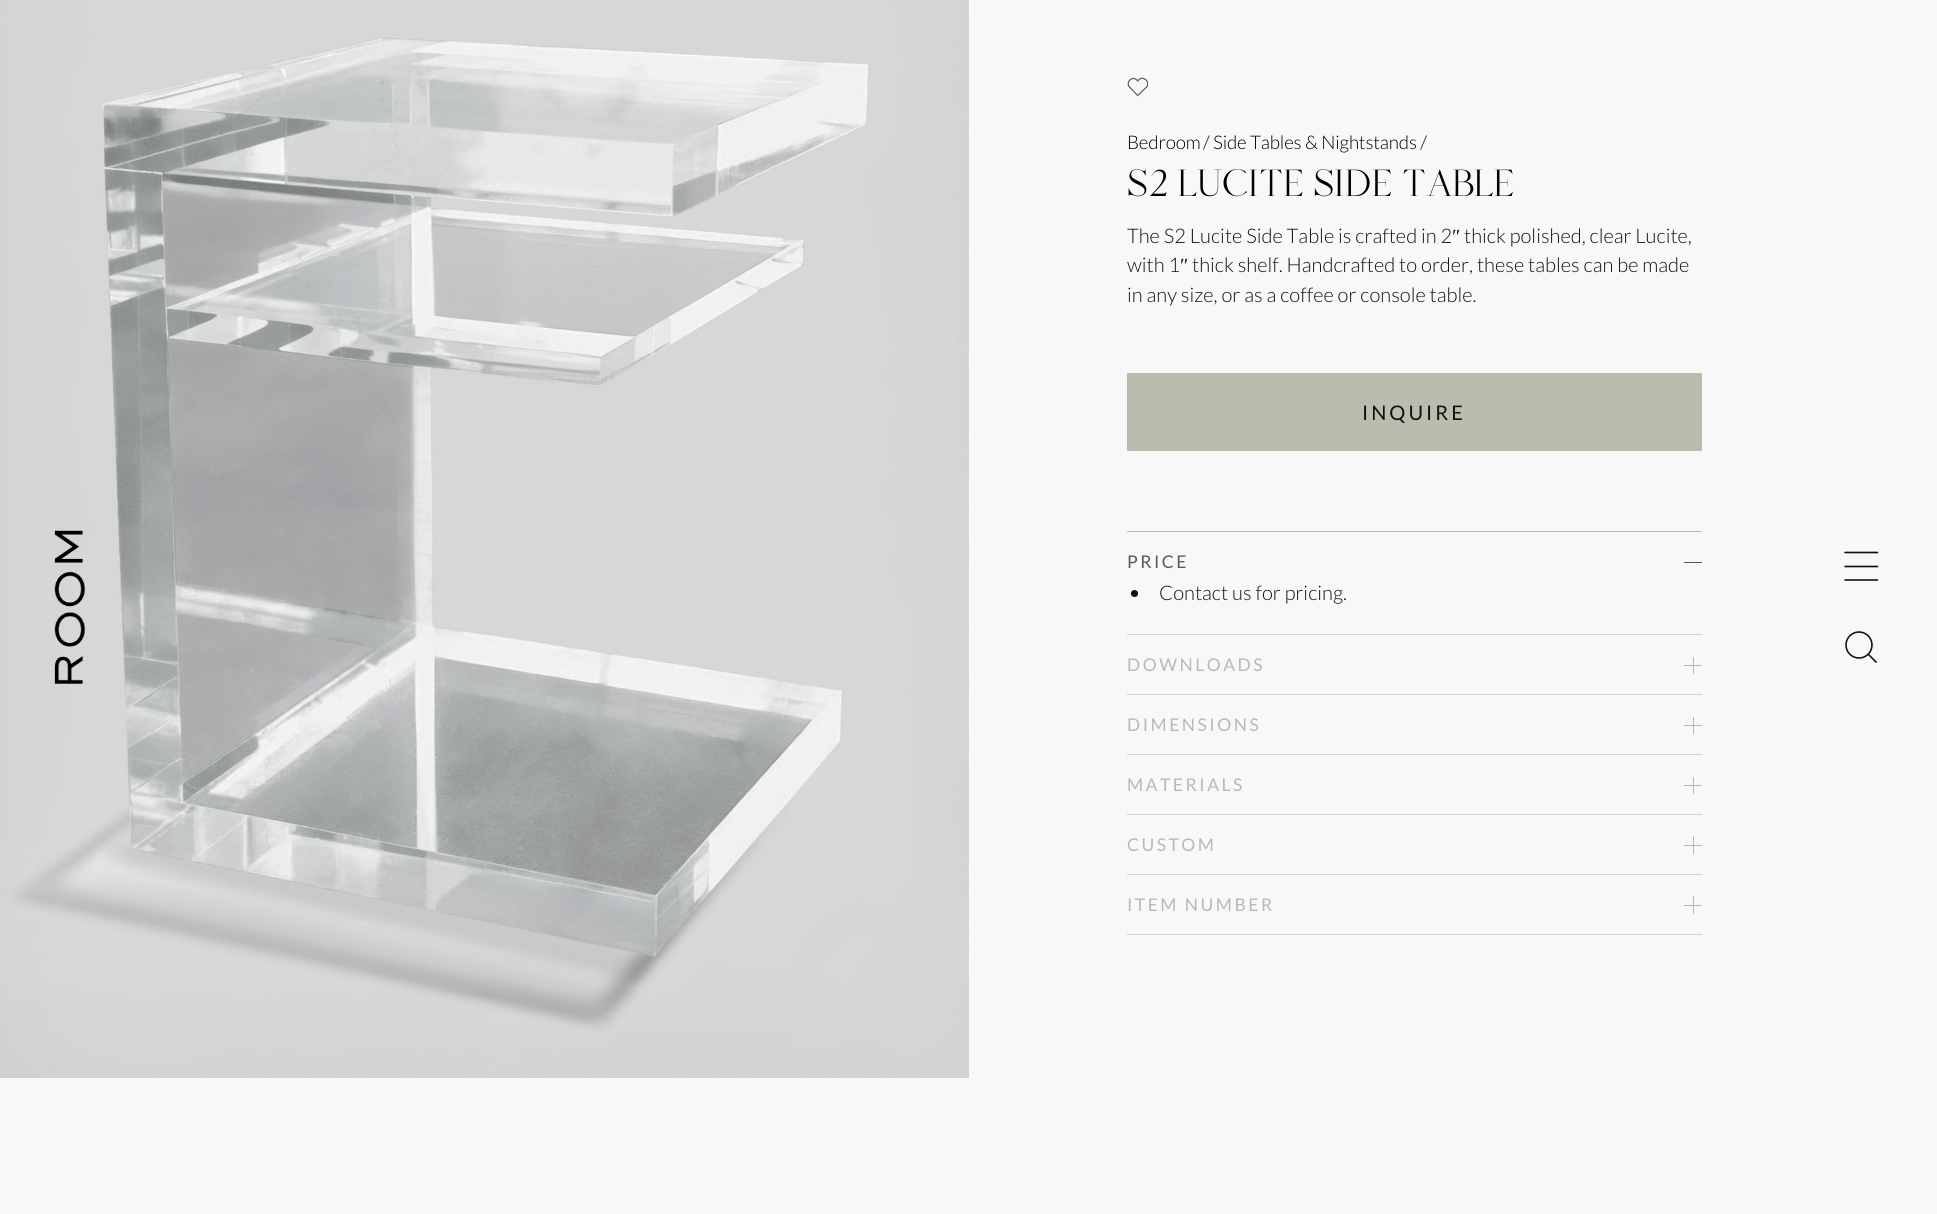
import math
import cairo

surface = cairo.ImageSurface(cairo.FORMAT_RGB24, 1937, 1214)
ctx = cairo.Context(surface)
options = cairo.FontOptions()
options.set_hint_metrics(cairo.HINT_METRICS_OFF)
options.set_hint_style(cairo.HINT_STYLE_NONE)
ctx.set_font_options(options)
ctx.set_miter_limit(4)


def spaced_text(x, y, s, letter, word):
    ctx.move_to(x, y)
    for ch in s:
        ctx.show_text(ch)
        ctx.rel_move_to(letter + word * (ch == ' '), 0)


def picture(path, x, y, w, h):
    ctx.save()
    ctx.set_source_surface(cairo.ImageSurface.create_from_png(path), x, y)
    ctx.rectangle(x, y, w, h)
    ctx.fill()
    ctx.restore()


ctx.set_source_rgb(0.969, 0.969, 0.969)
ctx.paint()
picture("img1.png", 0, 0, 969, 1078)
picture("img2.png", 1127, 77, 21, 20)
ctx.select_font_face("Lato Light")
ctx.set_font_size(18.75)
ctx.set_source_rgb(0, 0, 0)
spaced_text(1127, 149, "Bedroom", -0.15, 0)
spaced_text(1203, 149, "/ Side Tables & Nightstands /", -0.15, 0)
ctx.select_font_face("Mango")
ctx.set_font_size(53.75)
ctx.move_to(1127, 196)
ctx.show_text("S2 LUCITE SIDE TABLE")
ctx.select_font_face("Lato Light")
ctx.set_font_size(20.1)
ctx.set_source_rgb(0.067, 0.067, 0.067)
ctx.move_to(1127, 243)
ctx.show_text("The S2 Lucite Side Table is crafted in 2")
ctx.select_font_face("Liberation Serif")
ctx.move_to(1452, 243)
ctx.show_text("″")
ctx.select_font_face("Lato Light")
ctx.move_to(1464, 243)
ctx.show_text("thick polished, clear Lucite,")
ctx.move_to(1127, 272)
ctx.show_text("with 1")
ctx.select_font_face("Liberation Serif")
ctx.move_to(1180, 272)
ctx.show_text("″")
ctx.select_font_face("Lato Light")
ctx.move_to(1192, 272)
ctx.show_text("thick shelf. Handcrafted to order, these tables can be made")
ctx.move_to(1127, 302)
ctx.show_text("in any size, or as a coffee or console table.")
ctx.set_source_rgb(0.733, 0.733, 0.682)
ctx.rectangle(1127, 373, 575, 78)
ctx.fill()
ctx.select_font_face("Lato")
ctx.set_source_rgb(0.067, 0.067, 0.067)
spaced_text(1362, 420, "INQUIRE", 3, 0)
ctx.set_source_rgb(0.714, 0.725, 0.737)
ctx.rectangle(1127, 531, 575, 1)
ctx.fill()
ctx.set_source_rgb(0.808, 0.816, 0.824)
ctx.rectangle(1127, 634, 575, 1)
ctx.fill()
ctx.set_font_size(17.5)
ctx.set_source_rgb(0.329, 0.361, 0.388)
spaced_text(1127, 568, "PRICE", 2.5, 0)
ctx.rectangle(1684, 562, 18, 1)
ctx.fill()
ctx.set_source_rgb(0.067, 0.067, 0.067)
ctx.arc(1134.5, 593.5, 3.5, 0, 2 * math.pi)
ctx.fill()
ctx.select_font_face("Lato Light")
ctx.set_font_size(20.1)
ctx.move_to(1159, 600)
ctx.show_text("Contact us for pricing.")
ctx.set_source_rgb(0.808, 0.816, 0.824)
ctx.rectangle(1127, 694, 575, 1)
ctx.fill()
ctx.select_font_face("Lato")
ctx.set_font_size(17.5)
ctx.set_source_rgb(0.714, 0.725, 0.737)
spaced_text(1127, 671, "DOWNLOADS", 2.5, 0)
ctx.rectangle(1684, 665, 18, 1)
ctx.fill()
ctx.rectangle(1693, 657, 1, 17)
ctx.fill()
ctx.set_source_rgb(0.808, 0.816, 0.824)
ctx.rectangle(1127, 754, 575, 1)
ctx.fill()
ctx.set_source_rgb(0.714, 0.725, 0.737)
spaced_text(1127, 731, "DIMENSIONS", 2.5, 0)
ctx.rectangle(1684, 725, 18, 1)
ctx.fill()
ctx.rectangle(1693, 717, 1, 17)
ctx.fill()
ctx.set_source_rgb(0.808, 0.816, 0.824)
ctx.rectangle(1127, 814, 575, 1)
ctx.fill()
ctx.set_source_rgb(0.714, 0.725, 0.737)
spaced_text(1127, 791, "MATERIALS", 2.5, 0)
ctx.rectangle(1684, 785, 18, 1)
ctx.fill()
ctx.rectangle(1693, 777, 1, 17)
ctx.fill()
ctx.set_source_rgb(0.808, 0.816, 0.824)
ctx.rectangle(1127, 874, 575, 1)
ctx.fill()
ctx.set_source_rgb(0.714, 0.725, 0.737)
spaced_text(1127, 851, "CUSTOM", 2.5, 0)
ctx.rectangle(1684, 845, 18, 1)
ctx.fill()
ctx.rectangle(1693, 836, 1, 18)
ctx.fill()
ctx.set_source_rgb(0.808, 0.816, 0.824)
ctx.rectangle(1127, 934, 575, 1)
ctx.fill()
ctx.set_source_rgb(0.714, 0.725, 0.737)
spaced_text(1127, 911, "ITEM NUMBER", 2.5, 0)
ctx.rectangle(1684, 905, 18, 1)
ctx.fill()
ctx.rectangle(1693, 896, 1, 18)
ctx.fill()
picture("img3.png", 54, 530, 32, 154)
ctx.new_path()
ctx.move_to(1877.5, 552.5)
ctx.line_to(1845, 552.5)
ctx.move_to(1877.5, 566.5)
ctx.line_to(1845, 566.5)
ctx.move_to(1845, 580)
ctx.line_to(1877.5, 580)
ctx.set_source_rgb(0.067, 0.067, 0.067)
ctx.set_line_width(1.6)
ctx.set_line_cap(cairo.LINE_CAP_ROUND)
ctx.stroke()
ctx.arc(1859, 645, 13, 0, 2 * math.pi)
ctx.set_line_cap(cairo.LINE_CAP_BUTT)
ctx.stroke()
ctx.new_path()
ctx.move_to(1868.5, 654.5)
ctx.line_to(1876, 662)
ctx.set_line_cap(cairo.LINE_CAP_SQUARE)
ctx.stroke()
surface.write_to_png("page.png")
